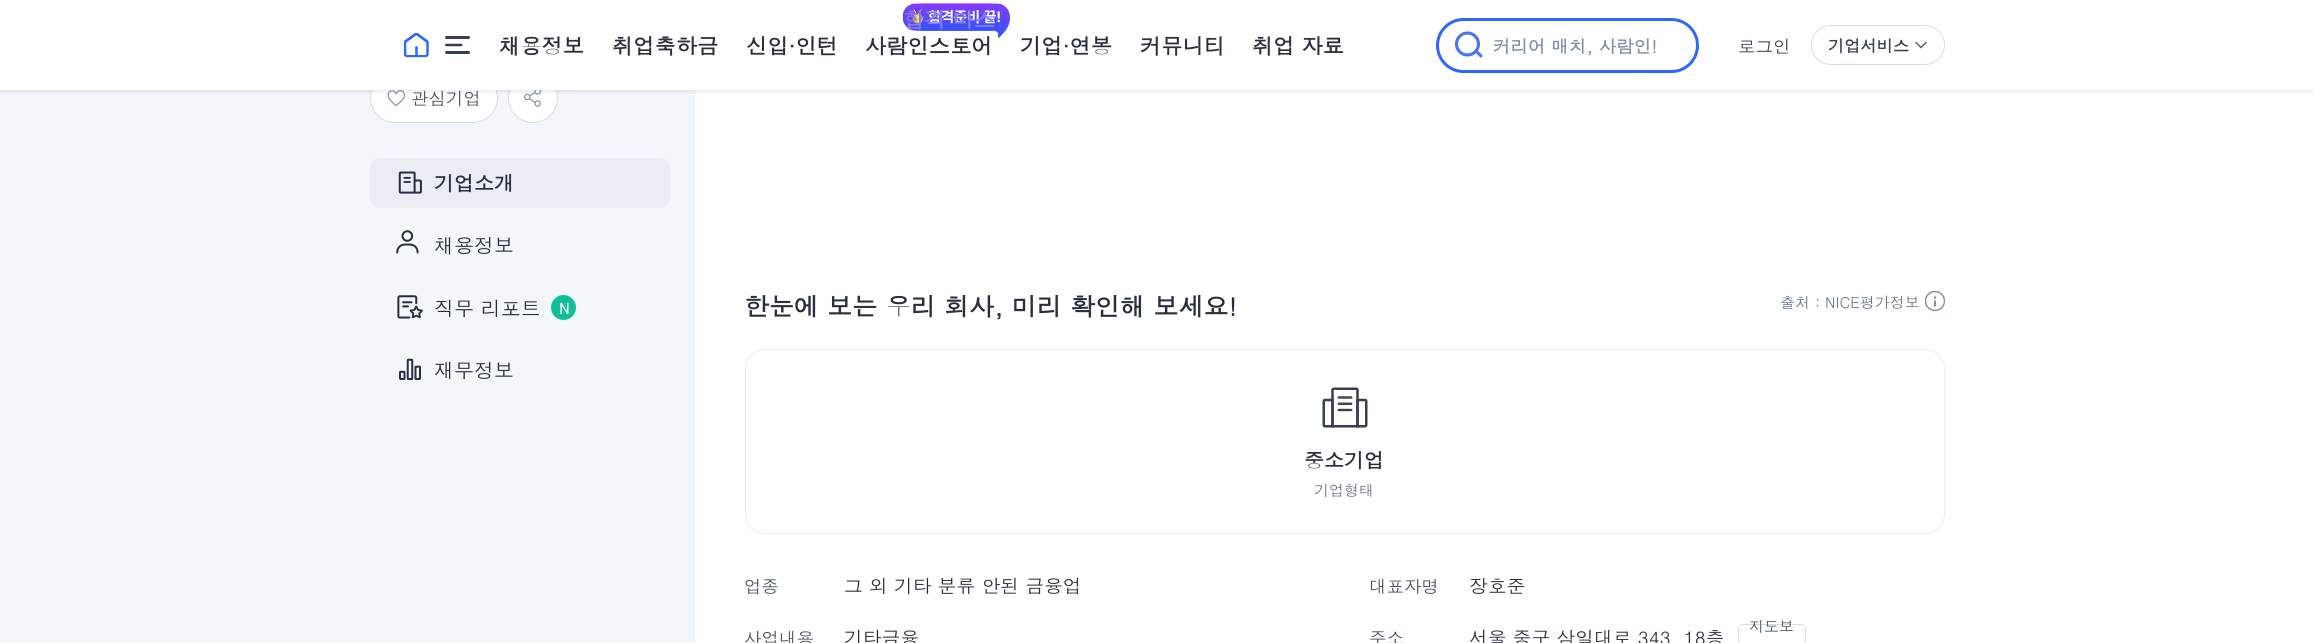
import math
import cairo

surface = cairo.ImageSurface(cairo.FORMAT_RGB24, 2313, 643)
ctx = cairo.Context(surface)
options = cairo.FontOptions()
options.set_hint_metrics(cairo.HINT_METRICS_OFF)
options.set_hint_style(cairo.HINT_STYLE_NONE)
ctx.set_font_options(options)
ctx.set_miter_limit(4)


def round_rect(x, y, w, h, r):
    ctx.new_sub_path()
    for i, (u, v) in enumerate([(x + w - r, y + h - r), (x + r, y + h - r), (x + r, y + r), (x + w - r, y + r)]):
        ctx.arc(u, v, r, i * math.pi / 2, (i + 1) * math.pi / 2)
    ctx.close_path()


def picture(path, x, y, w, h):
    ctx.save()
    ctx.set_source_surface(cairo.ImageSurface.create_from_png(path), x, y)
    ctx.rectangle(x, y, w, h)
    ctx.fill()
    ctx.restore()


ctx.set_source_rgb(1, 1, 1)
ctx.paint()
ctx.set_source_rgb(0.957, 0.965, 0.98)
ctx.rectangle(0, 90, 695, 553)
ctx.fill()
ctx.set_source_rgb(1, 1, 1)
round_rect(370.5, 73.5, 127, 49, 24.5)
ctx.fill_preserve()
ctx.set_source_rgb(0.843, 0.863, 0.898)
ctx.set_line_width(1)
ctx.stroke()
ctx.set_source_rgb(1, 1, 1)
ctx.arc(533, 98, 24.5, 0, 2 * math.pi)
ctx.fill_preserve()
ctx.set_source_rgb(0.843, 0.863, 0.898)
ctx.stroke()
ctx.set_source_rgb(1, 1, 1)
ctx.rectangle(371, 73, 186, 17)
ctx.fill()
picture("img1.png", 404, 33, 25, 25)
picture("img2.png", 445, 36, 25, 18)
ctx.select_font_face("Dotum", cairo.FONT_SLANT_NORMAL, cairo.FONT_WEIGHT_BOLD)
ctx.set_font_size(21.25)
ctx.set_source_rgb(0.161, 0.18, 0.255)
ctx.move_to(499, 54)
ctx.show_text("채용정보")
ctx.move_to(612, 54)
ctx.show_text("취업축하금")
ctx.move_to(746, 54)
ctx.show_text("신입·인턴")
picture("img3.png", 903, 3, 107, 35)
ctx.set_source_rgb(0.522, 0.482, 0.937)
ctx.move_to(903, 28)
ctx.show_text("합격 마스")
ctx.set_source_rgb(0.161, 0.18, 0.255)
ctx.move_to(865, 54)
ctx.show_text("사람인스토어")
ctx.move_to(1020, 54)
ctx.show_text("기업·연봉")
ctx.move_to(1140, 54)
ctx.show_text("커뮤니티")
ctx.move_to(1252, 54)
ctx.show_text("취업 자료")
round_rect(1437.5, 19.5, 260, 52, 26)
ctx.set_source_rgb(0.176, 0.404, 1)
ctx.set_line_width(3)
ctx.stroke()
ctx.arc(1467.5, 44, 11, 0, 2 * math.pi)
ctx.set_source_rgb(0.282, 0.463, 0.937)
ctx.set_line_width(3.1)
ctx.stroke()
ctx.new_path()
ctx.move_to(1481, 56)
ctx.line_to(1476, 51)
ctx.set_line_cap(cairo.LINE_CAP_ROUND)
ctx.stroke()
ctx.set_font_size(17.5)
ctx.set_source_rgb(0.518, 0.569, 0.655)
ctx.move_to(1493, 53)
ctx.show_text("커리어 매치, 사람인!")
ctx.select_font_face("Dotum")
ctx.set_source_rgb(0.216, 0.247, 0.341)
ctx.move_to(1738, 53)
ctx.show_text("로그인")
round_rect(1811.5, 25.5, 133, 39, 19.5)
ctx.set_source_rgb(0.843, 0.863, 0.898)
ctx.set_line_width(1)
ctx.set_line_cap(cairo.LINE_CAP_BUTT)
ctx.stroke()
ctx.select_font_face("Dotum", cairo.FONT_SLANT_NORMAL, cairo.FONT_WEIGHT_BOLD)
ctx.set_font_size(16.25)
ctx.set_source_rgb(0.216, 0.247, 0.341)
ctx.move_to(1828, 52)
ctx.show_text("기업서비스")
ctx.new_path()
ctx.move_to(1916, 42.5)
ctx.line_to(1921, 47.5)
ctx.line_to(1926, 42.5)
ctx.set_source_rgb(0.361, 0.4, 0.482)
ctx.set_line_width(1.5)
ctx.set_line_cap(cairo.LINE_CAP_ROUND)
ctx.stroke()
picture("img4.png", 387, 90, 18, 17)
picture("img5.png", 524, 90, 17, 17)
gradient = cairo.LinearGradient(1157, 95, 1157, 90)
gradient.add_color_stop_rgba(0, 0.216, 0.247, 0.341, 0)
gradient.add_color_stop_rgba(1, 0.216, 0.247, 0.341, 0.1)
ctx.set_source(gradient)
ctx.rectangle(0, 90, 2313, 4)
ctx.fill()
ctx.select_font_face("Dotum")
ctx.set_font_size(17.5)
ctx.set_source_rgb(0.278, 0.314, 0.404)
ctx.move_to(411, 105)
ctx.show_text("관심기업")
ctx.set_source_rgb(0.918, 0.929, 0.957)
round_rect(370, 158, 300, 50, 10)
ctx.fill()
picture("img6.png", 398, 171, 24, 23)
ctx.select_font_face("Dotum", cairo.FONT_SLANT_NORMAL, cairo.FONT_WEIGHT_BOLD)
ctx.set_font_size(20)
ctx.set_source_rgb(0.161, 0.18, 0.255)
ctx.move_to(434, 191)
ctx.show_text("기업소개")
picture("img7.png", 396, 230, 23, 24)
ctx.select_font_face("Dotum")
ctx.move_to(434, 253)
ctx.show_text("채용정보")
picture("img8.png", 397, 295, 26, 24)
ctx.move_to(434, 316)
ctx.show_text("직무 리포트")
ctx.set_source_rgb(0.067, 0.745, 0.604)
ctx.new_path()
ctx.arc(563.5, 307.5, 12.5, 0, 2 * math.pi)
ctx.fill()
ctx.select_font_face("Dotum", cairo.FONT_SLANT_NORMAL, cairo.FONT_WEIGHT_BOLD)
ctx.set_font_size(15)
ctx.set_source_rgb(1, 1, 1)
ctx.move_to(559, 314)
ctx.show_text("N")
picture("img9.png", 399, 358, 22, 22)
ctx.select_font_face("Dotum")
ctx.set_font_size(20)
ctx.set_source_rgb(0.161, 0.18, 0.255)
ctx.move_to(434, 378)
ctx.show_text("재무정보")
ctx.select_font_face("Dotum", cairo.FONT_SLANT_NORMAL, cairo.FONT_WEIGHT_BOLD)
ctx.set_font_size(25)
ctx.move_to(744, 316)
ctx.show_text("한눈에 보는 우리 회사, 미리 확인해 보세요!")
ctx.select_font_face("Dotum")
ctx.set_font_size(15)
ctx.set_source_rgb(0.404, 0.451, 0.557)
ctx.move_to(1780, 308)
ctx.show_text("출처 : NICE평가정보")
picture("img10.png", 1925, 291, 20, 20)
round_rect(745.5, 349.5, 1199, 184, 19.5)
ctx.set_source_rgb(0.918, 0.929, 0.957)
ctx.set_line_width(1)
ctx.set_line_cap(cairo.LINE_CAP_BUTT)
ctx.stroke()
picture("img11.png", 1322, 387, 46, 41)
ctx.select_font_face("Dotum", cairo.FONT_SLANT_NORMAL, cairo.FONT_WEIGHT_BOLD)
ctx.set_font_size(20)
ctx.set_source_rgb(0.161, 0.18, 0.255)
ctx.move_to(1304, 468)
ctx.show_text("중소기업")
ctx.select_font_face("Dotum")
ctx.set_font_size(15)
ctx.set_source_rgb(0.404, 0.451, 0.557)
ctx.move_to(1314, 496)
ctx.show_text("기업형태")
ctx.set_font_size(17.5)
ctx.set_source_rgb(0.278, 0.314, 0.404)
ctx.move_to(744, 593)
ctx.show_text("업종")
ctx.set_font_size(18.75)
ctx.set_source_rgb(0.161, 0.18, 0.255)
ctx.move_to(844, 593)
ctx.show_text("그 외 기타 분류 안된 금융업")
ctx.set_font_size(17.5)
ctx.set_source_rgb(0.278, 0.314, 0.404)
ctx.move_to(1369, 593)
ctx.show_text("대표자명")
ctx.set_font_size(18.75)
ctx.set_source_rgb(0.161, 0.18, 0.255)
ctx.move_to(1469, 593)
ctx.show_text("장호준")
ctx.set_font_size(17.5)
ctx.set_source_rgb(0.278, 0.314, 0.404)
ctx.move_to(744, 645)
ctx.show_text("사업내용")
ctx.set_font_size(18.75)
ctx.set_source_rgb(0.161, 0.18, 0.255)
ctx.move_to(844, 645)
ctx.show_text("기타금융")
ctx.set_font_size(17.5)
ctx.set_source_rgb(0.278, 0.314, 0.404)
ctx.move_to(1369, 645)
ctx.show_text("주소")
round_rect(1738.5, 624.5, 67, 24, 4.5)
ctx.set_source_rgb(0.843, 0.863, 0.898)
ctx.stroke()
ctx.set_font_size(15)
ctx.set_source_rgb(0.278, 0.314, 0.404)
ctx.move_to(1749, 632)
ctx.show_text("지도보")
ctx.set_font_size(18.75)
ctx.set_source_rgb(0.161, 0.18, 0.255)
ctx.move_to(1469, 645)
ctx.show_text("서울 중구 삼일대로 343, 18층")
surface.write_to_png("page.png")
